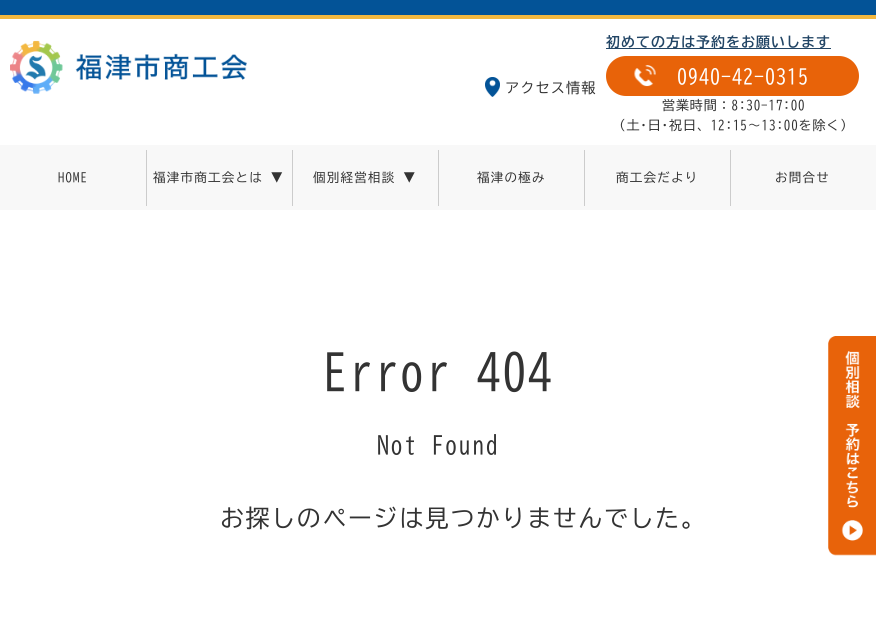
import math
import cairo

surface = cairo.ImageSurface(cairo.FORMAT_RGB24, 876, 636)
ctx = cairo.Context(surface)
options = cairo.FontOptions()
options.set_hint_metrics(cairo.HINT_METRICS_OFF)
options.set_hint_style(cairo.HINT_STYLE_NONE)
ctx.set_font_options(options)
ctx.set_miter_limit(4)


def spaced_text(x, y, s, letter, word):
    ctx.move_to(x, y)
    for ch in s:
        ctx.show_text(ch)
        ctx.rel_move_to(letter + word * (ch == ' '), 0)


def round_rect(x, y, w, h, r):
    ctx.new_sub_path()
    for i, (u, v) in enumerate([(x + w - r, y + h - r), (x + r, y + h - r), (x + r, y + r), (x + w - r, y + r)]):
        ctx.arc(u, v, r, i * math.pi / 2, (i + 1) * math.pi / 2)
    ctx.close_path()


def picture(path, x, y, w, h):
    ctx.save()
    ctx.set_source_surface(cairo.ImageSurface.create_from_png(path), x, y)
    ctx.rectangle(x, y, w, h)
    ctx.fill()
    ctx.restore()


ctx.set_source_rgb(1, 1, 1)
ctx.paint()
ctx.set_source_rgb(0.012, 0.325, 0.592)
ctx.rectangle(0, 0, 876, 15)
ctx.fill()
ctx.set_source_rgb(0.953, 0.722, 0.251)
ctx.rectangle(0, 15, 876, 4)
ctx.fill()
picture("img1.png", 10, 40, 237, 54)
picture("img2.png", 485, 77, 15, 20)
ctx.select_font_face("BIZ UDGothic")
ctx.set_font_size(14.25)
ctx.set_source_rgb(0.2, 0.2, 0.2)
spaced_text(505, 93, "アクセス情報", 1, 0)
ctx.set_source_rgb(0.133, 0.271, 0.396)
ctx.rectangle(606, 48, 225, 1)
ctx.fill()
ctx.select_font_face("BIZ UDGothic", cairo.FONT_SLANT_NORMAL, cairo.FONT_WEIGHT_BOLD)
ctx.set_font_size(14)
spaced_text(606, 47, "初めての方は予約をお願いします", 1, 0)
ctx.set_source_rgb(0.91, 0.388, 0.039)
round_rect(606, 56, 253, 40, 20)
ctx.fill()
picture("img3.png", 634, 65, 22, 22)
ctx.select_font_face("BIZ UDGothic")
ctx.set_font_size(20)
ctx.set_source_rgb(1, 1, 1)
spaced_text(677, 84, "0940-42-0315", 1, 0)
ctx.set_font_size(13)
ctx.set_source_rgb(0.2, 0.2, 0.2)
spaced_text(662, 110, "営業時間：8:30-17:00", 0.9, 0)
spaced_text(619, 130, "(土･日･祝日、12:15～13:00を除く)", 0.9, 0)
ctx.set_source_rgb(0.969, 0.969, 0.969)
ctx.rectangle(0, 145, 876, 65)
ctx.fill()
ctx.set_font_size(12.5)
ctx.set_source_rgb(0.2, 0.2, 0.2)
spaced_text(58, 182, "HOME", 1.25, 0)
ctx.set_source_rgb(0.8, 0.8, 0.8)
ctx.rectangle(146, 150, 1, 56)
ctx.fill()
ctx.set_source_rgb(0.2, 0.2, 0.2)
spaced_text(153, 182, "福津市商工会とは ▼", 1.25, 0)
ctx.set_source_rgb(0.8, 0.8, 0.8)
ctx.rectangle(292, 150, 1, 56)
ctx.fill()
ctx.set_source_rgb(0.2, 0.2, 0.2)
spaced_text(313, 182, "個別経営相談 ▼", 1.25, 0)
ctx.set_source_rgb(0.8, 0.8, 0.8)
ctx.rectangle(438, 150, 1, 56)
ctx.fill()
ctx.set_source_rgb(0.2, 0.2, 0.2)
spaced_text(477, 182, "福津の極み", 1.25, 0)
ctx.set_source_rgb(0.8, 0.8, 0.8)
ctx.rectangle(584, 150, 1, 56)
ctx.fill()
ctx.set_source_rgb(0.2, 0.2, 0.2)
spaced_text(616, 182, "商工会だより", 1.25, 0)
ctx.set_source_rgb(0.8, 0.8, 0.8)
ctx.rectangle(730, 150, 1, 56)
ctx.fill()
ctx.set_source_rgb(0.2, 0.2, 0.2)
spaced_text(775, 182, "お問合せ", 1.25, 0)
ctx.set_font_size(48)
spaced_text(323, 390, "Error 404", 1.6, 0)
ctx.set_font_size(24)
spaced_text(377, 454, "Not Found", 1.6, 0)
spaced_text(220, 527, "お探しのページは見つかりませんでした。", 1.6, 0)
picture("img4.png", 828, 336, 48, 220)
surface.write_to_png("page.png")
